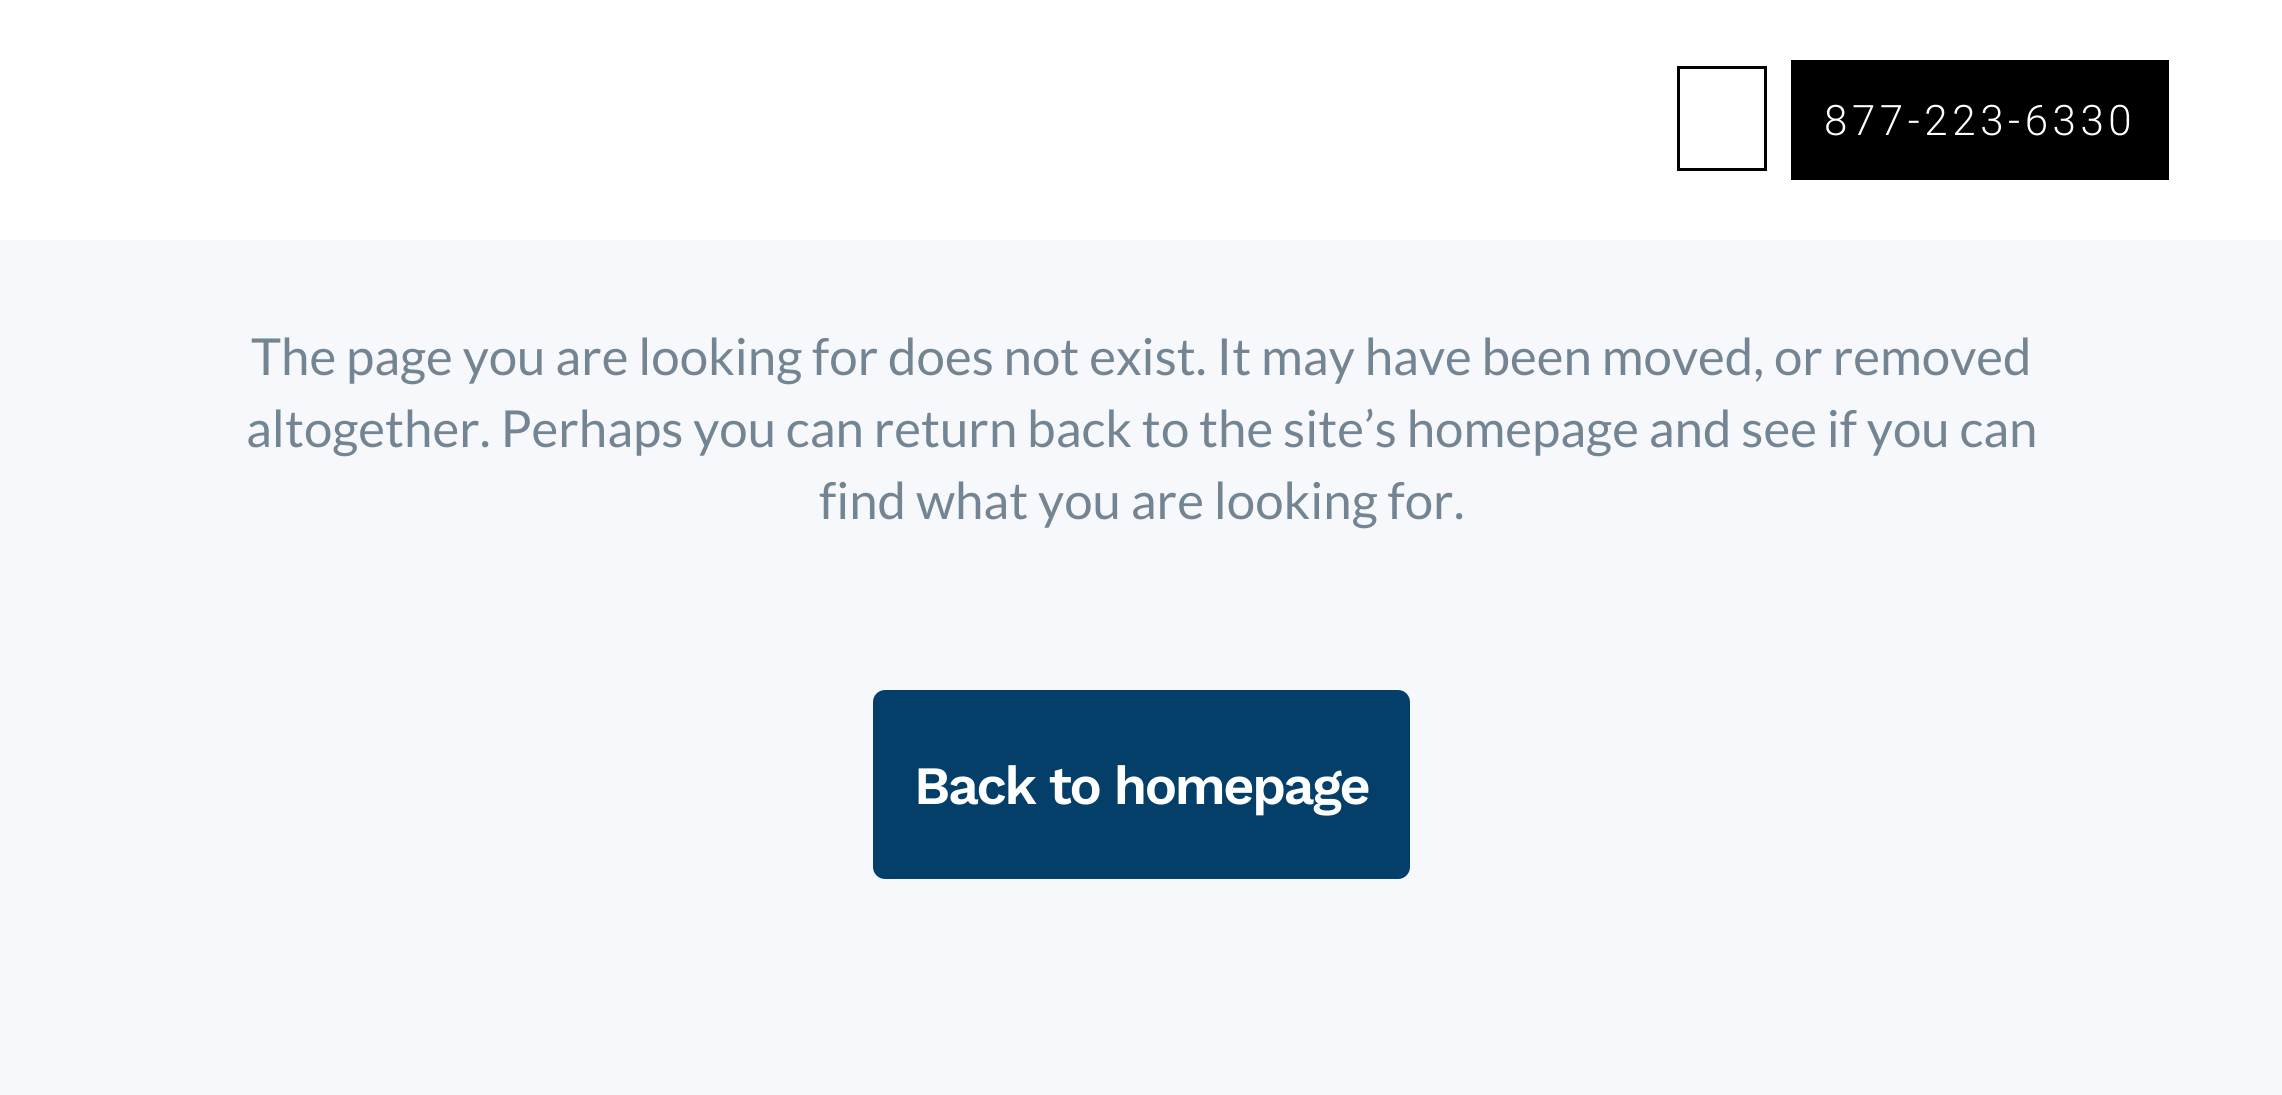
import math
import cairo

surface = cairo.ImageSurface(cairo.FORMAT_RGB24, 2282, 1095)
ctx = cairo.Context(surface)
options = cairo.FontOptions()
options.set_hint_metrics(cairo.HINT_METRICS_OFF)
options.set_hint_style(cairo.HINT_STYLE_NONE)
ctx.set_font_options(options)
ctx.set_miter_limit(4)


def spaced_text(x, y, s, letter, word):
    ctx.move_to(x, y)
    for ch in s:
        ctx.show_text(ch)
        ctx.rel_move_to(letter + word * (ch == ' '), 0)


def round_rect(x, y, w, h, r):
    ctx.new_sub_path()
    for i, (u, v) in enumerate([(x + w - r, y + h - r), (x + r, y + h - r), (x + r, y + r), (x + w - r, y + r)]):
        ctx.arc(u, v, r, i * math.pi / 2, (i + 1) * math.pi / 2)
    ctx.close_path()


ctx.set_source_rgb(0.965, 0.969, 0.984)
ctx.paint()
ctx.set_source_rgb(1, 1, 1)
ctx.rectangle(0, 0, 2282, 240)
ctx.fill()
ctx.rectangle(1678.5, 67.5, 87, 102)
ctx.set_source_rgb(0, 0, 0)
ctx.set_line_width(3)
ctx.stroke()
ctx.rectangle(1791, 60, 378, 120)
ctx.fill()
ctx.select_font_face("Roboto Light")
ctx.set_font_size(42)
ctx.set_source_rgb(1, 1, 1)
spaced_text(1824, 135, "877-223-6330", 4.6, 0)
ctx.select_font_face("Lato")
ctx.set_font_size(51)
ctx.set_source_rgb(0.451, 0.522, 0.576)
ctx.move_to(251, 375)
ctx.show_text("The page you are looking for does not exist. It may have been moved, or removed")
ctx.move_to(246, 447)
ctx.show_text("altogether. Perhaps you can return back to the site’s homepage and see if you can")
ctx.move_to(819, 519)
ctx.show_text("find what you are looking for.")
ctx.set_source_rgb(0.012, 0.247, 0.412)
round_rect(873, 690, 537, 189, 12)
ctx.fill()
ctx.select_font_face("Work Sans SemiBold")
ctx.set_font_size(54)
ctx.set_source_rgb(1, 1, 1)
spaced_text(914, 804, "Back to homepage", -2.4, 0)
surface.write_to_png("page.png")
